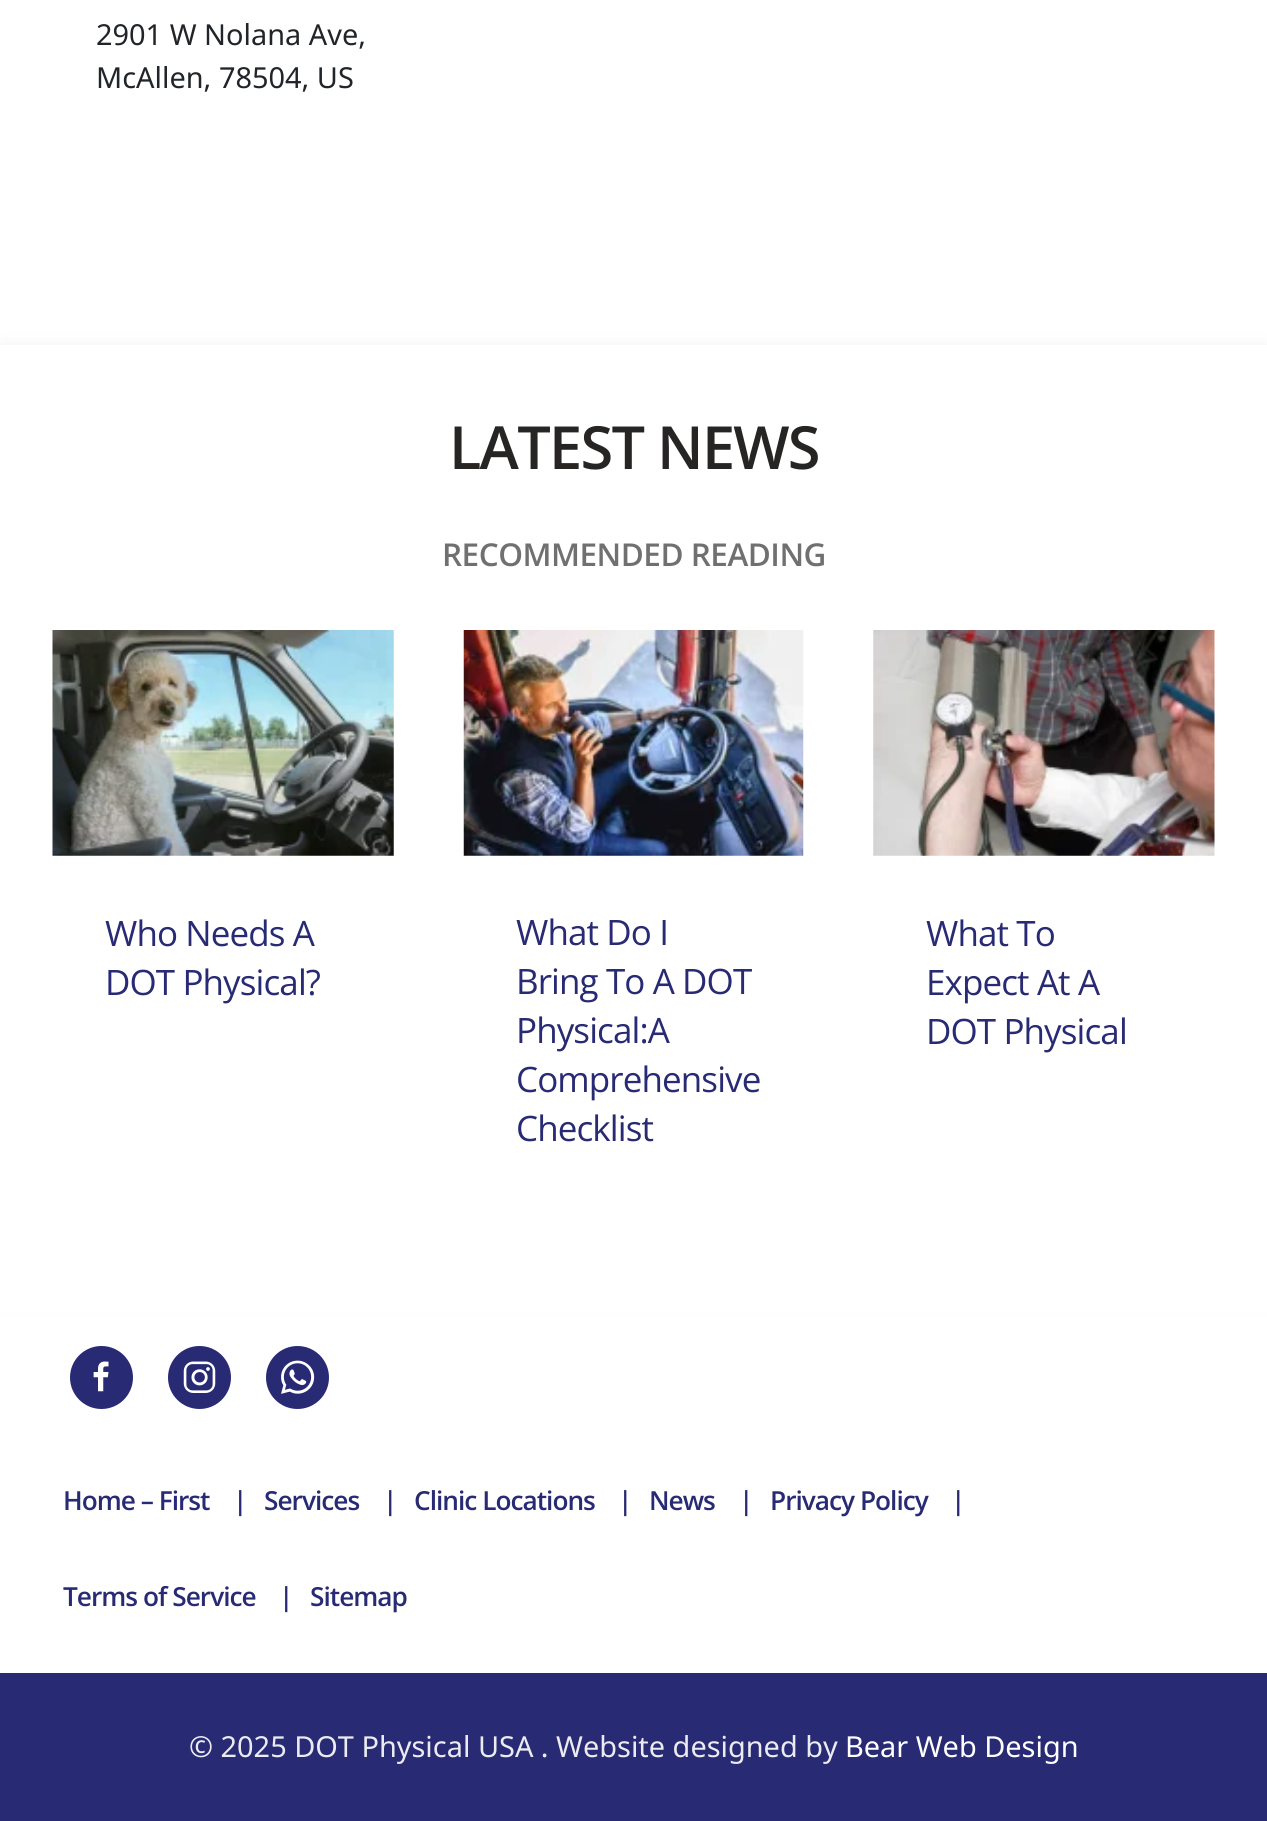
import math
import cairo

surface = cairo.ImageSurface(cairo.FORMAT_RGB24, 1267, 1821)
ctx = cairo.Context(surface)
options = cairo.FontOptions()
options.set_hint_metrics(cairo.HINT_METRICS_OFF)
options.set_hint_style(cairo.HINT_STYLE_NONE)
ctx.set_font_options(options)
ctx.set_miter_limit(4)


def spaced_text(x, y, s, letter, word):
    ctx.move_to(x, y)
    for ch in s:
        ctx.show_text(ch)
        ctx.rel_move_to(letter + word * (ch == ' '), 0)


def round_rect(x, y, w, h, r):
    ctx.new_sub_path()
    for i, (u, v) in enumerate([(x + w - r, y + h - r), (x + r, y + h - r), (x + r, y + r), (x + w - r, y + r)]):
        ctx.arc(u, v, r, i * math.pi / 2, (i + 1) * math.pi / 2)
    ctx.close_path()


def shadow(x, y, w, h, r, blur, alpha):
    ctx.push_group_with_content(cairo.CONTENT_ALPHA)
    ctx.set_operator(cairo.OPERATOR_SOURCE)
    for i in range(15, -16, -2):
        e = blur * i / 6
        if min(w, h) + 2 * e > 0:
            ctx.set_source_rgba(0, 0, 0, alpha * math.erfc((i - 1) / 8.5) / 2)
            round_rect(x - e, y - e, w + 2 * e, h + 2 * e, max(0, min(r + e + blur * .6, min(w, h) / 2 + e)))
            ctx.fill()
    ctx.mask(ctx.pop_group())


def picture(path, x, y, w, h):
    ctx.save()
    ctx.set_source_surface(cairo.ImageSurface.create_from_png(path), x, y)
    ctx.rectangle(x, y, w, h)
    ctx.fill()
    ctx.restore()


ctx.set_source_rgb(1, 1, 1)
ctx.paint()
ctx.select_font_face("Noto Sans")
ctx.set_font_size(28.9)
ctx.set_source_rgb(0.129, 0.145, 0.161)
ctx.move_to(96, 45)
ctx.show_text("2901 W Nolana Ave,")
ctx.move_to(96, 88)
ctx.show_text("McAllen, 78504, US")
ctx.save()
ctx.set_fill_rule(cairo.FILL_RULE_EVEN_ODD)
ctx.new_path()
ctx.move_to(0, 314)
ctx.line_to(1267, 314)
ctx.line_to(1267, 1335)
ctx.line_to(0, 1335)
ctx.close_path()
ctx.move_to(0, 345)
ctx.line_to(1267, 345)
ctx.line_to(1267, 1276)
ctx.line_to(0, 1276)
ctx.close_path()
ctx.clip()
ctx.set_source_rgb(0, 0, 0)
shadow(0, 359, 1267, 931, 0, 14.5, 0.15)
ctx.restore()
ctx.select_font_face("Open Sans SemiBold")
ctx.set_font_size(59.5)
ctx.set_source_rgb(0.153, 0.141, 0.141)
spaced_text(449, 469, "LATEST NEWS", -1.75, 0)
ctx.set_font_size(31.5)
ctx.set_source_rgb(0.439, 0.439, 0.439)
spaced_text(442, 566, "RECOMMENDED READING", -0.5, 0)
picture("img1.png", 52, 630, 342, 226)
ctx.select_font_face("Open Sans")
ctx.set_font_size(35)
ctx.set_source_rgb(0.157, 0.165, 0.451)
spaced_text(105, 946, "Who Needs A", -0.9, 0)
spaced_text(105, 995, "DOT Physical?", -0.9, 0)
picture("img2.png", 463, 630, 341, 226)
spaced_text(516, 945, "What Do I", -0.9, 0)
spaced_text(516, 994, "Bring To A DOT", -0.9, 0)
spaced_text(516, 1043, "Physical:A", -0.9, 0)
spaced_text(516, 1092, "Comprehensive", -0.9, 0)
spaced_text(516, 1141, "Checklist", -0.9, 0)
picture("img3.png", 873, 630, 342, 226)
spaced_text(926, 946, "What To", -0.9, 0)
spaced_text(926, 995, "Expect At A", -0.9, 0)
spaced_text(926, 1044, "DOT Physical", -0.9, 0)
ctx.set_source_rgb(1, 1, 1)
ctx.rectangle(0, 1276, 1267, 36)
ctx.fill()
ctx.set_source_rgb(0.157, 0.165, 0.451)
ctx.arc(101.5, 1377.5, 31.5, 0, 2 * math.pi)
ctx.fill()
picture("img4.png", 93, 1361, 16, 31)
ctx.arc(199.5, 1377.5, 31.5, 0, 2 * math.pi)
ctx.fill()
picture("img5.png", 183, 1361, 33, 32)
ctx.arc(297.5, 1377.5, 31.5, 0, 2 * math.pi)
ctx.fill()
picture("img6.png", 281, 1360, 34, 34)
ctx.select_font_face("Open Sans SemiBold")
ctx.set_font_size(26.25)
spaced_text(63, 1510, "Home – First", -1, 0)
spaced_text(233, 1510, "|", -1, 0)
spaced_text(264, 1510, "Services", -1, 0)
spaced_text(383, 1510, "|", -1, 0)
spaced_text(414, 1510, "Clinic Locations", -1, 0)
spaced_text(618, 1510, "|", -1, 0)
spaced_text(649, 1510, "News", -1, 0)
spaced_text(739, 1510, "|", -1, 0)
spaced_text(770, 1510, "Privacy Policy", -1, 0)
spaced_text(951, 1510, "|", -1, 0)
spaced_text(63, 1606, "Terms of Service", -1, 0)
spaced_text(279, 1606, "|", -1, 0)
spaced_text(310, 1606, "Sitemap", -1, 0)
ctx.rectangle(0, 1673, 1267, 148)
ctx.fill()
ctx.select_font_face("Noto Sans")
ctx.set_font_size(28.9)
ctx.set_source_rgb(0.918, 0.918, 0.945)
ctx.move_to(189, 1757)
ctx.show_text("© 2025 DOT Physical USA . Website designed by")
ctx.set_source_rgb(1, 1, 1)
ctx.move_to(845, 1757)
ctx.show_text("Bear Web Design")
surface.write_to_png("page.png")
